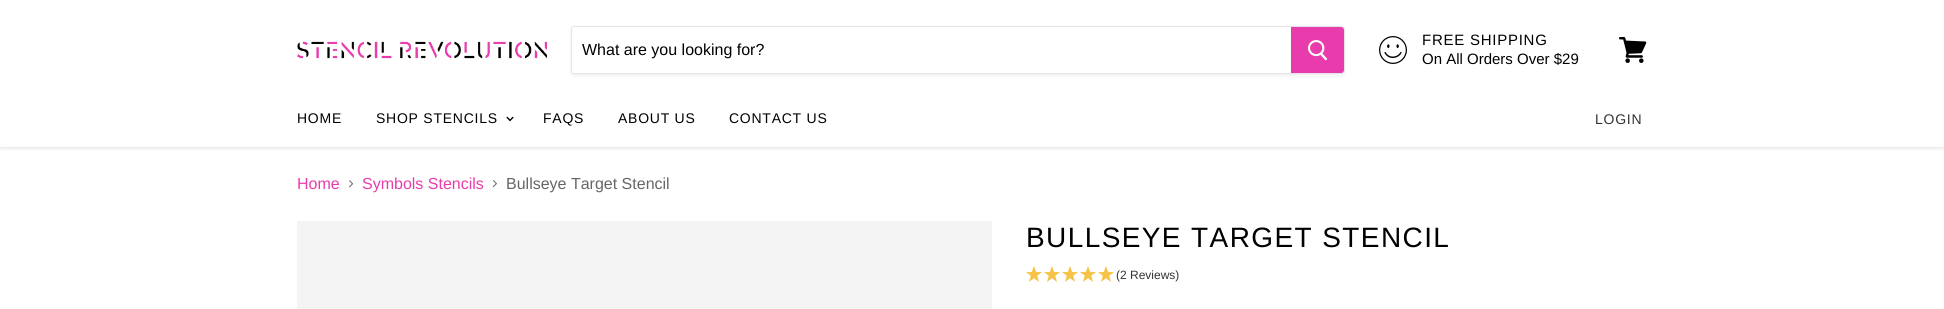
import math
import cairo

surface = cairo.ImageSurface(cairo.FORMAT_RGB24, 1944, 309)
ctx = cairo.Context(surface)
options = cairo.FontOptions()
options.set_hint_metrics(cairo.HINT_METRICS_OFF)
options.set_hint_style(cairo.HINT_STYLE_NONE)
ctx.set_font_options(options)
ctx.set_miter_limit(4)


def spaced_text(x, y, s, letter, word):
    ctx.move_to(x, y)
    for ch in s:
        ctx.show_text(ch)
        ctx.rel_move_to(letter + word * (ch == ' '), 0)


def round_rect(x, y, w, h, r):
    ctx.new_sub_path()
    for i, (u, v) in enumerate([(x + w - r, y + h - r), (x + r, y + h - r), (x + r, y + r), (x + w - r, y + r)]):
        ctx.arc(u, v, r, i * math.pi / 2, (i + 1) * math.pi / 2)
    ctx.close_path()


def shadow(x, y, w, h, r, blur, alpha):
    ctx.push_group_with_content(cairo.CONTENT_ALPHA)
    ctx.set_operator(cairo.OPERATOR_SOURCE)
    for i in range(15, -16, -2):
        e = blur * i / 6
        if min(w, h) + 2 * e > 0:
            ctx.set_source_rgba(0, 0, 0, alpha * math.erfc((i - 1) / 8.5) / 2)
            round_rect(x - e, y - e, w + 2 * e, h + 2 * e, max(0, min(r + e + blur * .6, min(w, h) / 2 + e)))
            ctx.fill()
    ctx.mask(ctx.pop_group())


def picture(path, x, y, w, h):
    ctx.save()
    ctx.set_source_surface(cairo.ImageSurface.create_from_png(path), x, y)
    ctx.rectangle(x, y, w, h)
    ctx.fill()
    ctx.restore()


ctx.set_source_rgb(1, 1, 1)
ctx.paint()
ctx.save()
ctx.rectangle(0, 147, 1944, 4)
ctx.clip()
ctx.set_source_rgb(0.498, 0.498, 0.498)
shadow(0, 1, 1944, 147, 0, 2, 0.25)
ctx.restore()
picture("img1.png", 297, 41, 250, 18)
ctx.save()
ctx.set_fill_rule(cairo.FILL_RULE_EVEN_ODD)
ctx.new_path()
ctx.move_to(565, 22)
ctx.line_to(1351, 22)
ctx.line_to(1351, 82)
ctx.line_to(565, 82)
ctx.close_path()
ctx.move_to(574, 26)
ctx.line_to(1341, 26)
ctx.curve_to(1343, 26, 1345, 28, 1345, 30)
ctx.line_to(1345, 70)
ctx.curve_to(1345, 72, 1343, 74, 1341, 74)
ctx.line_to(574, 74)
ctx.curve_to(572.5, 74, 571, 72.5, 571, 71)
ctx.line_to(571, 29)
ctx.curve_to(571, 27.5, 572.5, 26, 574, 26)
ctx.close_path()
ctx.clip()
ctx.set_source_rgb(0.498, 0.498, 0.498)
shadow(571, 28, 774, 48, 4, 1.5, 0.11)
ctx.restore()
ctx.new_path()
ctx.move_to(574, 26.5)
ctx.line_to(1341, 26.5)
ctx.curve_to(1343, 26.5, 1344.5, 28, 1344.5, 30)
ctx.line_to(1344.5, 70)
ctx.curve_to(1344.5, 72, 1343, 73.5, 1341, 73.5)
ctx.line_to(574, 73.5)
ctx.curve_to(572.5, 73.5, 571.5, 72.5, 571.5, 71)
ctx.line_to(571.5, 29)
ctx.curve_to(571.5, 27.5, 572.5, 26.5, 574, 26.5)
ctx.close_path()
ctx.set_source_rgba(0.498, 0.498, 0.498, 0.2)
ctx.set_line_width(1)
ctx.stroke()
ctx.select_font_face("Liberation Sans")
ctx.set_font_size(16)
ctx.set_source_rgb(0, 0, 0)
ctx.move_to(582, 55)
ctx.show_text("What are you looking for?")
ctx.set_source_rgb(0.914, 0.235, 0.675)
ctx.new_path()
ctx.move_to(1291.5, 27.5)
ctx.line_to(1341, 27.5)
ctx.curve_to(1342.5, 27.5, 1343.5, 28.5, 1343.5, 30)
ctx.line_to(1343.5, 70)
ctx.curve_to(1343.5, 71.5, 1342.5, 72.5, 1341, 72.5)
ctx.line_to(1291.5, 72.5)
ctx.close_path()
ctx.fill_preserve()
ctx.stroke()
picture("img2.png", 1308, 40, 20, 21)
picture("img3.png", 1379, 36, 28, 28)
ctx.set_font_size(15)
ctx.set_source_rgb(0, 0, 0)
spaced_text(1422, 45, "FREE SHIPPING", 0.75, 0)
ctx.move_to(1422, 64)
ctx.show_text("On All Orders Over $29")
picture("img4.png", 1619, 37, 28, 26)
ctx.set_font_size(14)
spaced_text(297, 123, "HOME", 0.75, 0)
spaced_text(376, 123, "SHOP STENCILS", 0.75, 0)
picture("img5.png", 506, 116, 8, 6)
spaced_text(543, 123, "FAQS", 0.75, 0)
spaced_text(618, 123, "ABOUT US", 0.75, 0)
spaced_text(729, 123, "CONTACT US", 0.75, 0)
ctx.set_source_rgb(0.2, 0.2, 0.2)
spaced_text(1595, 124, "LOGIN", 0.75, 0)
ctx.set_font_size(16)
ctx.set_source_rgb(0.914, 0.235, 0.675)
ctx.move_to(297, 189)
ctx.show_text("Home")
picture("img6.png", 349, 180, 4, 8)
ctx.move_to(362, 189)
ctx.show_text("Symbols Stencils")
picture("img7.png", 492, 180, 5, 8)
ctx.set_source_rgb(0.4, 0.4, 0.4)
ctx.move_to(506, 189)
ctx.show_text("Bullseye Target Stencil")
ctx.set_source_rgb(0.957, 0.957, 0.957)
ctx.rectangle(297, 221, 695, 88)
ctx.fill()
ctx.set_font_size(28)
ctx.set_source_rgb(0, 0, 0)
spaced_text(1026, 247, "BULLSEYE TARGET STENCIL", 1.4, 0)
picture("img8.png", 1026, 266, 16, 16)
picture("img8.png", 1044, 266, 16, 16)
picture("img8.png", 1062, 266, 16, 16)
picture("img8.png", 1080, 266, 16, 16)
picture("img8.png", 1098, 266, 16, 16)
ctx.set_font_size(12)
ctx.set_source_rgb(0.2, 0.2, 0.2)
ctx.move_to(1116, 279)
ctx.show_text("(2 Reviews)")
surface.write_to_png("page.png")
